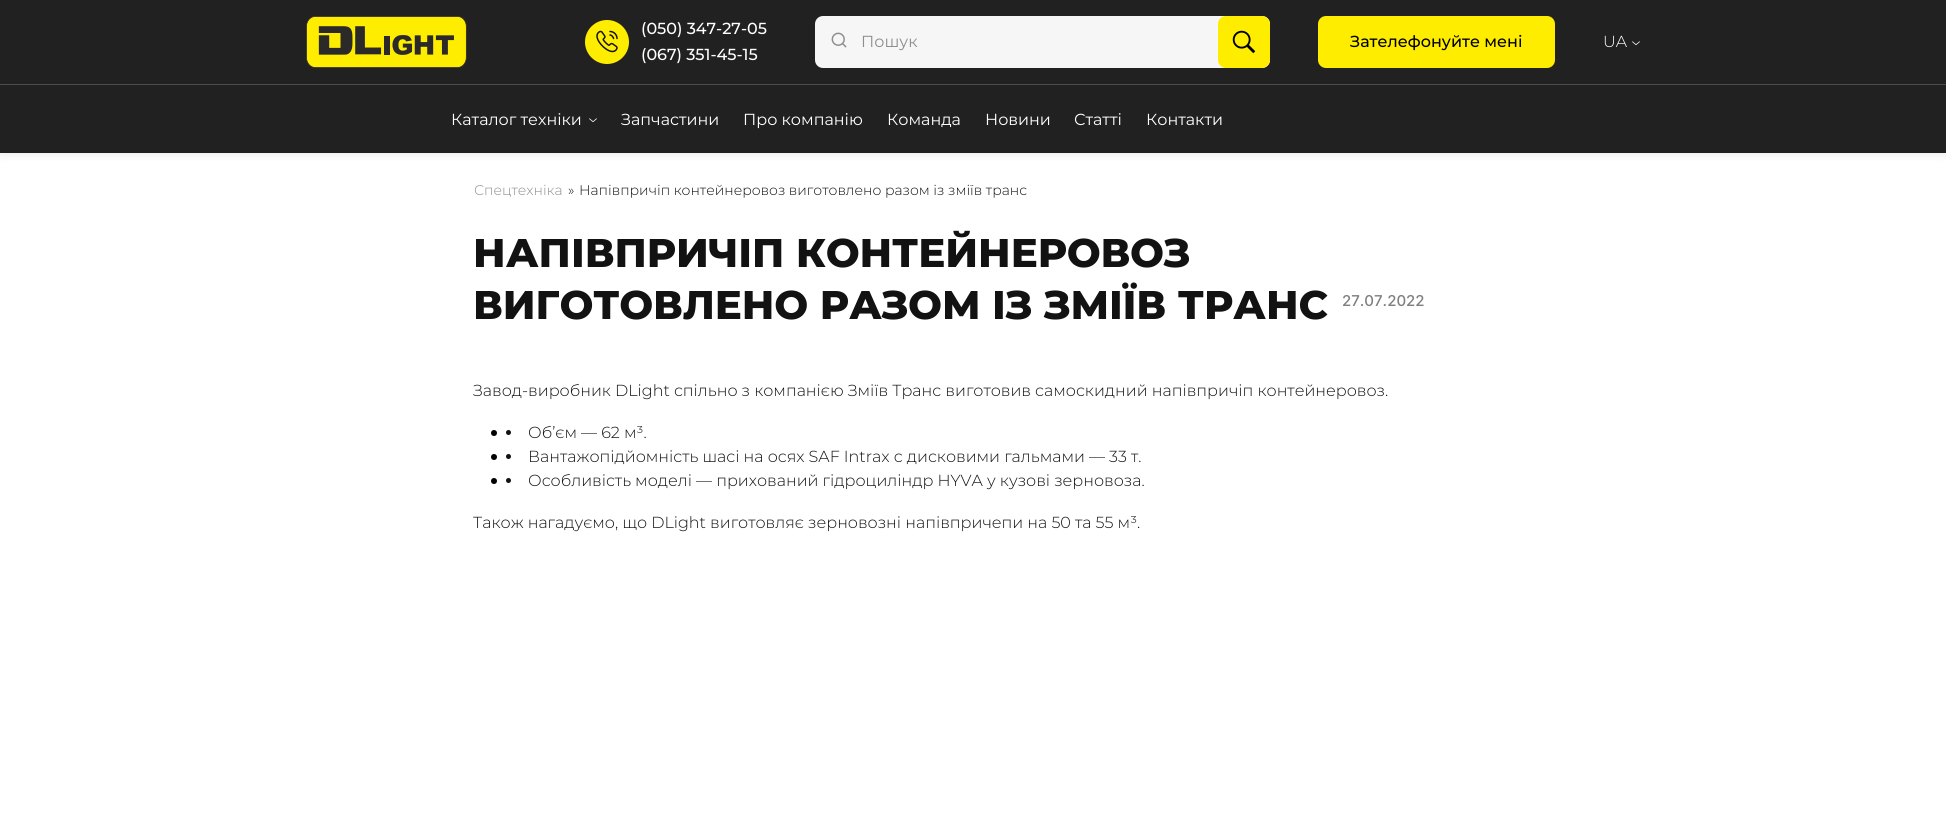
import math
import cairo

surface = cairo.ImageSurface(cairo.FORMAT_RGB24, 1946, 825)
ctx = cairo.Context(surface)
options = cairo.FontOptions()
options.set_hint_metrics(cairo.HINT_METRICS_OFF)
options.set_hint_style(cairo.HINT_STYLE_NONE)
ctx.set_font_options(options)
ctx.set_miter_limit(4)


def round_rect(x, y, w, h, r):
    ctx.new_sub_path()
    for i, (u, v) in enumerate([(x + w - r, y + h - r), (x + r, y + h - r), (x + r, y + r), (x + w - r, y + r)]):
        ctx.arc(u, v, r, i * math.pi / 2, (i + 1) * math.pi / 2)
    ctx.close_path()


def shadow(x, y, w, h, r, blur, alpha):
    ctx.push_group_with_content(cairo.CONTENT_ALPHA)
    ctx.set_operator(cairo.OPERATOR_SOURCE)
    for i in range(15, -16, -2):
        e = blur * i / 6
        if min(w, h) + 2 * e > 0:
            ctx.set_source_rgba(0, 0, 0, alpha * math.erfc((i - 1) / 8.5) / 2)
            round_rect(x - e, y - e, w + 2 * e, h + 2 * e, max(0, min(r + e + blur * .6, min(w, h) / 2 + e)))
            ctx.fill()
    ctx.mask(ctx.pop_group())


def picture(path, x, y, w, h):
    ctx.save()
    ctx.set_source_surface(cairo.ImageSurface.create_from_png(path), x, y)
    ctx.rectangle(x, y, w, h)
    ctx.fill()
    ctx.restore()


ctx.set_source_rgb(1, 1, 1)
ctx.paint()
ctx.set_source_rgb(0, 0, 0)
shadow(0, 0, 1946, 153, 0, 5, 0.1)
ctx.set_source_rgb(0.129, 0.129, 0.129)
ctx.rectangle(0, 0, 1946, 153)
ctx.fill()
picture("img1.png", 306, 16, 161, 52)
ctx.set_source_rgb(1, 0.929, 0)
ctx.arc(607, 42, 22, 0, 2 * math.pi)
ctx.fill()
picture("img2.png", 596, 30, 22, 23)
ctx.select_font_face("Montserrat Medium")
ctx.set_font_size(16)
ctx.set_source_rgb(1, 1, 1)
ctx.move_to(641, 34)
ctx.show_text("(050) 347-27-05")
ctx.move_to(641, 60)
ctx.show_text("(067) 351-45-15")
ctx.set_source_rgb(0.961, 0.961, 0.961)
round_rect(816, 17, 453, 50, 7)
ctx.fill_preserve()
ctx.stroke()
picture("img3.png", 831, 32, 16, 16)
ctx.select_font_face("Montserrat")
ctx.set_source_rgb(0.557, 0.557, 0.557)
ctx.move_to(861, 47)
ctx.show_text("Пошук")
ctx.set_source_rgb(1, 0.929, 0)
round_rect(1218, 16, 52, 52, 8)
ctx.fill()
picture("img4.png", 1232, 30, 24, 24)
round_rect(1318, 16, 237, 52, 8)
ctx.fill()
ctx.select_font_face("Montserrat Medium")
ctx.set_source_rgb(0, 0, 0)
ctx.move_to(1350, 47)
ctx.show_text("Зателефонуйте мені")
ctx.select_font_face("Montserrat Light")
ctx.set_source_rgb(1, 1, 1)
ctx.move_to(1603, 47)
ctx.show_text("UA")
picture("img5.png", 1632, 41, 8, 4)
ctx.set_source_rgb(0.302, 0.302, 0.302)
ctx.rectangle(0, 84, 1946, 1)
ctx.fill()
ctx.select_font_face("Montserrat")
ctx.set_source_rgb(1, 1, 1)
ctx.move_to(451, 125)
ctx.show_text("Каталог техніки")
picture("img5.png", 589, 118, 8, 4)
ctx.move_to(621, 125)
ctx.show_text("Запчастини")
ctx.move_to(743, 125)
ctx.show_text("Про компанію")
ctx.move_to(887, 125)
ctx.show_text("Команда")
ctx.move_to(985, 125)
ctx.show_text("Новини")
ctx.move_to(1074, 125)
ctx.show_text("Статті")
ctx.move_to(1146, 125)
ctx.show_text("Контакти")
ctx.select_font_face("Montserrat Light")
ctx.set_font_size(14)
ctx.set_source_rgb(0.557, 0.557, 0.557)
ctx.move_to(474, 195)
ctx.show_text("Спецтехніка")
ctx.set_source_rgb(0.071, 0.071, 0.071)
ctx.move_to(568, 195)
ctx.show_text("»")
ctx.move_to(579, 195)
ctx.show_text("Напівпричіп контейнеровоз виготовлено разом із зміїв транс")
ctx.select_font_face("Montserrat ExtraBold")
ctx.set_font_size(40)
ctx.move_to(473, 267)
ctx.show_text("НАПІВПРИЧІП КОНТЕЙНЕРОВОЗ")
ctx.move_to(473, 319)
ctx.show_text("ВИГОТОВЛЕНО РАЗОМ ІЗ ЗМІЇВ ТРАНС")
ctx.select_font_face("Inter Medium")
ctx.set_font_size(15)
ctx.set_source_rgb(0.502, 0.502, 0.502)
ctx.move_to(1342, 306)
ctx.show_text("27.07.2022")
ctx.select_font_face("Montserrat Light")
ctx.set_font_size(16)
ctx.set_source_rgb(0.071, 0.071, 0.071)
ctx.move_to(473, 396)
ctx.show_text("Завод-виробник DLight спільно з компанією Зміїв Транс виготовив самоскидний напівпричіп контейнеровоз.")
ctx.set_source_rgb(0, 0, 0)
ctx.new_path()
ctx.arc(494, 433, 3, 0, 2 * math.pi)
ctx.fill()
ctx.set_source_rgb(0.071, 0.071, 0.071)
ctx.arc(508.5, 432.5, 2.5, 0, 2 * math.pi)
ctx.fill()
ctx.move_to(528, 438)
ctx.show_text("Об’єм — 62 м³.")
ctx.set_source_rgb(0, 0, 0)
ctx.new_path()
ctx.arc(494, 457, 3, 0, 2 * math.pi)
ctx.fill()
ctx.set_source_rgb(0.071, 0.071, 0.071)
ctx.arc(508.5, 456.5, 2.5, 0, 2 * math.pi)
ctx.fill()
ctx.move_to(528, 462)
ctx.show_text("Вантажопідйомність шасі на осях SAF Intrax с дисковими гальмами — 33 т.")
ctx.set_source_rgb(0, 0, 0)
ctx.new_path()
ctx.arc(494, 481, 3, 0, 2 * math.pi)
ctx.fill()
ctx.set_source_rgb(0.071, 0.071, 0.071)
ctx.arc(508.5, 480.5, 2.5, 0, 2 * math.pi)
ctx.fill()
ctx.move_to(528, 486)
ctx.show_text("Особливість моделі — прихований гідроциліндр HYVA у кузові зерновоза.")
ctx.move_to(473, 528)
ctx.show_text("Також нагадуємо, що DLight виготовляє зерновозні напівпричепи на 50 та 55 м³.")
surface.write_to_png("page.png")
